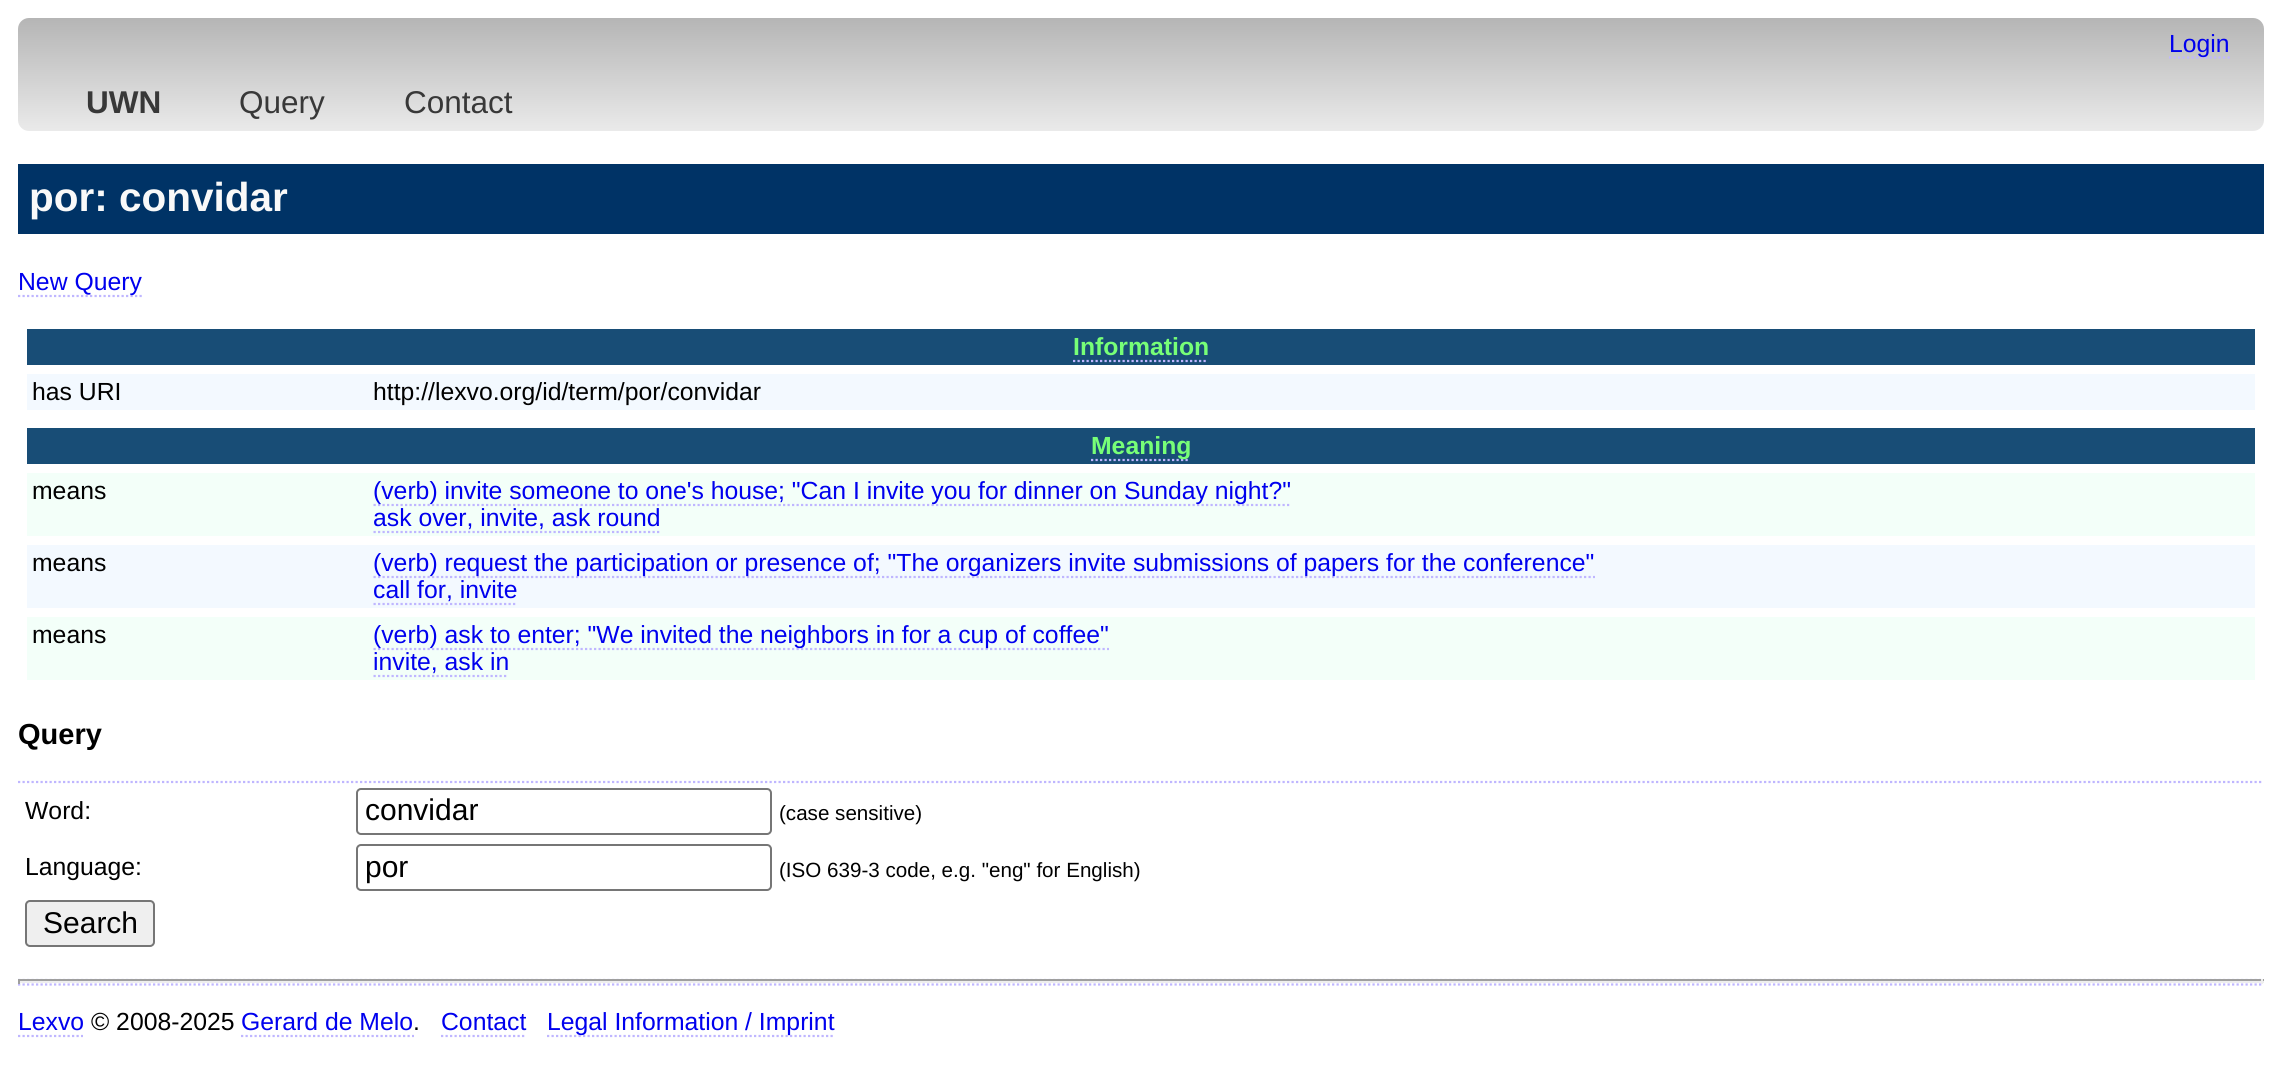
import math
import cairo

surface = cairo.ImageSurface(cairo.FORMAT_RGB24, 2280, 1069)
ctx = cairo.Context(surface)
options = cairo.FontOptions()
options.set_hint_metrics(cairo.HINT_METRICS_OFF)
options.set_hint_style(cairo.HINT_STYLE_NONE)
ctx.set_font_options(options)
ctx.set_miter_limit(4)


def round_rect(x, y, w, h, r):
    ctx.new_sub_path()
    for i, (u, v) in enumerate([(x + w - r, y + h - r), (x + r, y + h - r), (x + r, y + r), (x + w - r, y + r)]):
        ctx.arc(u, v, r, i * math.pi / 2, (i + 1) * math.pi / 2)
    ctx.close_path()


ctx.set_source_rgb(1, 1, 1)
ctx.paint()
gradient = cairo.LinearGradient(1141, 18, 1141, 131)
gradient.add_color_stop_rgba(0, 0.71, 0.71, 0.71, 1)
gradient.add_color_stop_rgba(1, 0.918, 0.918, 0.918, 1)
ctx.set_source(gradient)
round_rect(18, 18, 2246, 113, 11)
ctx.fill()
ctx.new_path()
ctx.move_to(2169, 57.5)
ctx.line_to(2230, 57.5)
ctx.set_source_rgb(0.749, 0.714, 1)
ctx.set_line_width(2.2)
ctx.set_dash([2.25, 2.25])
ctx.stroke()
ctx.select_font_face("Liberation Sans")
ctx.set_font_size(24.75)
ctx.set_source_rgb(0, 0, 0.933)
ctx.move_to(2169, 52)
ctx.show_text("Login")
ctx.select_font_face("Liberation Sans", cairo.FONT_SLANT_NORMAL, cairo.FONT_WEIGHT_BOLD)
ctx.set_font_size(31.5)
ctx.set_source_rgb(0.22, 0.22, 0.22)
ctx.move_to(86, 113)
ctx.show_text("UWN")
ctx.select_font_face("Liberation Sans")
ctx.move_to(239, 113)
ctx.show_text("Query")
ctx.move_to(404, 113)
ctx.show_text("Contact")
ctx.set_source_rgb(0, 0.2, 0.4)
ctx.rectangle(18, 164, 2246, 70)
ctx.fill()
ctx.select_font_face("Liberation Sans", cairo.FONT_SLANT_NORMAL, cairo.FONT_WEIGHT_BOLD)
ctx.set_font_size(40.5)
ctx.set_source_rgb(0.973, 0.973, 0.973)
ctx.move_to(29, 211)
ctx.show_text("por: convidar")
ctx.new_path()
ctx.move_to(18, 296)
ctx.line_to(142, 296)
ctx.set_source_rgb(0.749, 0.714, 1)
ctx.stroke()
ctx.select_font_face("Liberation Sans")
ctx.set_font_size(24.75)
ctx.set_source_rgb(0, 0, 0.933)
ctx.move_to(18, 290)
ctx.show_text("New Query")
ctx.set_source_rgb(0.094, 0.302, 0.463)
ctx.rectangle(27, 329, 2228, 36)
ctx.fill()
ctx.select_font_face("Liberation Sans", cairo.FONT_SLANT_NORMAL, cairo.FONT_WEIGHT_BOLD)
ctx.set_source_rgb(0.467, 1, 0.467)
ctx.move_to(1073, 355)
ctx.show_text("Information")
ctx.new_path()
ctx.move_to(1073, 361)
ctx.line_to(1208, 361)
ctx.set_source_rgb(0.749, 0.714, 1)
ctx.stroke()
ctx.set_source_rgb(0.953, 0.973, 1)
ctx.rectangle(27, 374, 2228, 36)
ctx.fill()
ctx.select_font_face("Liberation Sans")
ctx.set_source_rgb(0, 0, 0)
ctx.move_to(32, 400)
ctx.show_text("has URI")
ctx.move_to(373, 400)
ctx.show_text("http://lexvo.org/id/term/por/convidar")
ctx.set_source_rgb(0.094, 0.302, 0.463)
ctx.rectangle(27, 428, 2228, 36)
ctx.fill()
ctx.new_path()
ctx.move_to(1091, 460)
ctx.line_to(1190, 460)
ctx.set_source_rgb(0.749, 0.714, 1)
ctx.stroke()
ctx.select_font_face("Liberation Sans", cairo.FONT_SLANT_NORMAL, cairo.FONT_WEIGHT_BOLD)
ctx.set_source_rgb(0.467, 1, 0.467)
ctx.move_to(1091, 454)
ctx.show_text("Meaning")
ctx.set_source_rgb(0.953, 1, 0.973)
ctx.rectangle(27, 473, 2228, 63)
ctx.fill()
ctx.select_font_face("Liberation Sans")
ctx.set_source_rgb(0, 0, 0)
ctx.move_to(32, 499)
ctx.show_text("means")
ctx.new_path()
ctx.move_to(373.5, 505)
ctx.line_to(1291.5, 505)
ctx.set_source_rgb(0.749, 0.714, 1)
ctx.stroke()
ctx.set_source_rgb(0, 0, 0.933)
ctx.move_to(373, 499)
ctx.show_text("(verb) invite someone to one's house; \"Can I invite you for dinner on Sunday night?\"")
ctx.move_to(373, 526)
ctx.show_text("ask over, invite, ask round")
ctx.new_path()
ctx.move_to(373.5, 532)
ctx.line_to(661.5, 532)
ctx.set_source_rgb(0.749, 0.714, 1)
ctx.stroke()
ctx.set_source_rgb(0.953, 0.973, 1)
ctx.rectangle(27, 545, 2228, 63)
ctx.fill()
ctx.set_source_rgb(0, 0, 0)
ctx.move_to(32, 571)
ctx.show_text("means")
ctx.new_path()
ctx.move_to(373.5, 577)
ctx.line_to(1595, 577)
ctx.set_source_rgb(0.749, 0.714, 1)
ctx.stroke()
ctx.set_source_rgb(0, 0, 0.933)
ctx.move_to(373, 571)
ctx.show_text("(verb) request the participation or presence of; \"The organizers invite submissions of papers for the conference\"")
ctx.move_to(373, 598)
ctx.show_text("call for, invite")
ctx.new_path()
ctx.move_to(373.5, 604)
ctx.line_to(517.5, 604)
ctx.set_source_rgb(0.749, 0.714, 1)
ctx.stroke()
ctx.set_source_rgb(0.953, 1, 0.973)
ctx.rectangle(27, 617, 2228, 63)
ctx.fill()
ctx.set_source_rgb(0, 0, 0)
ctx.move_to(32, 643)
ctx.show_text("means")
ctx.new_path()
ctx.move_to(373.5, 649)
ctx.line_to(1109, 649)
ctx.set_source_rgb(0.749, 0.714, 1)
ctx.stroke()
ctx.set_source_rgb(0, 0, 0.933)
ctx.move_to(373, 643)
ctx.show_text("(verb) ask to enter; \"We invited the neighbors in for a cup of coffee\"")
ctx.move_to(373, 670)
ctx.show_text("invite, ask in")
ctx.new_path()
ctx.move_to(373.5, 676)
ctx.line_to(508.5, 676)
ctx.set_source_rgb(0.749, 0.714, 1)
ctx.stroke()
ctx.new_path()
ctx.move_to(18, 782)
ctx.line_to(2263.5, 782)
ctx.stroke()
ctx.new_path()
ctx.move_to(18, 980)
ctx.line_to(2263.5, 980)
ctx.stroke()
ctx.new_path()
ctx.move_to(18, 984.5)
ctx.line_to(2263.5, 984.5)
ctx.stroke()
ctx.select_font_face("Liberation Sans", cairo.FONT_SLANT_NORMAL, cairo.FONT_WEIGHT_BOLD)
ctx.set_font_size(29)
ctx.set_source_rgb(0, 0, 0)
ctx.move_to(18, 744)
ctx.show_text("Query")
ctx.select_font_face("Liberation Sans")
ctx.set_font_size(24.75)
ctx.move_to(25, 819)
ctx.show_text("Word:")
round_rect(357, 789, 414, 45, 4)
ctx.set_source_rgb(0.463, 0.463, 0.463)
ctx.set_line_width(2)
ctx.set_dash([])
ctx.stroke()
ctx.set_font_size(30)
ctx.set_source_rgb(0, 0, 0)
ctx.move_to(365, 820)
ctx.show_text("convidar")
ctx.set_font_size(20.6)
ctx.move_to(779, 820)
ctx.show_text("(case sensitive)")
ctx.set_font_size(24.75)
ctx.move_to(25, 875)
ctx.show_text("Language:")
round_rect(357, 845, 414, 45, 4)
ctx.set_source_rgb(0.463, 0.463, 0.463)
ctx.stroke()
ctx.set_font_size(30)
ctx.set_source_rgb(0, 0, 0)
ctx.move_to(365, 877)
ctx.show_text("por")
ctx.set_font_size(20.6)
ctx.move_to(779, 877)
ctx.show_text("(ISO 639-3 code, e.g. \"eng\" for English)")
ctx.set_source_rgb(0.937, 0.937, 0.937)
round_rect(26, 901, 128, 45, 4)
ctx.fill_preserve()
ctx.set_source_rgb(0.463, 0.463, 0.463)
ctx.stroke()
ctx.set_font_size(30)
ctx.set_source_rgb(0, 0, 0)
ctx.move_to(43, 933)
ctx.show_text("Search")
ctx.set_source_rgb(0.624, 0.624, 0.624)
ctx.rectangle(18, 979, 2246, 2)
ctx.fill()
ctx.set_source_rgb(0.933, 0.933, 0.933)
ctx.rectangle(2261, 979, 2, 5)
ctx.fill()
ctx.rectangle(18, 981, 2246, 2)
ctx.fill()
ctx.set_source_rgb(0.624, 0.624, 0.624)
ctx.rectangle(18, 979, 2, 5)
ctx.fill()
ctx.set_font_size(24.75)
ctx.set_source_rgb(0, 0, 0.933)
ctx.move_to(18, 1030)
ctx.show_text("Lexvo")
ctx.new_path()
ctx.move_to(18, 1036)
ctx.line_to(83, 1036)
ctx.set_source_rgb(0.749, 0.714, 1)
ctx.set_line_width(2.2)
ctx.set_dash([2.25, 2.25])
ctx.stroke()
ctx.set_source_rgb(0, 0, 0)
ctx.move_to(91, 1030)
ctx.show_text("© 2008-2025")
ctx.set_source_rgb(0, 0, 0.933)
ctx.move_to(241, 1030)
ctx.show_text("Gerard de Melo")
ctx.new_path()
ctx.move_to(241, 1036)
ctx.line_to(414, 1036)
ctx.set_source_rgb(0.749, 0.714, 1)
ctx.stroke()
ctx.set_source_rgb(0, 0, 0)
ctx.move_to(413, 1030)
ctx.show_text(".")
ctx.set_source_rgb(0, 0, 0.933)
ctx.move_to(441, 1030)
ctx.show_text("Contact")
ctx.new_path()
ctx.move_to(441, 1036)
ctx.line_to(526.5, 1036)
ctx.set_source_rgb(0.749, 0.714, 1)
ctx.stroke()
ctx.new_path()
ctx.move_to(547, 1036)
ctx.line_to(835, 1036)
ctx.stroke()
ctx.set_source_rgb(0, 0, 0.933)
ctx.move_to(547, 1030)
ctx.show_text("Legal Information / Imprint")
surface.write_to_png("page.png")
